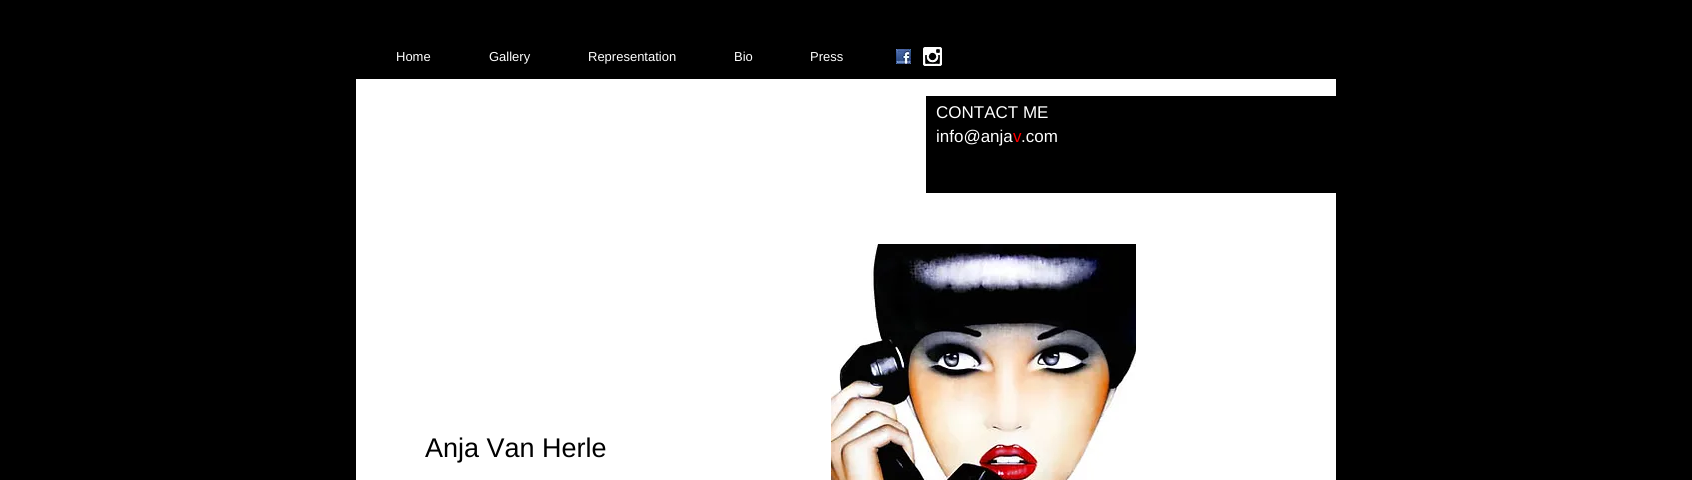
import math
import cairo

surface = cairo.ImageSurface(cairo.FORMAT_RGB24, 1692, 480)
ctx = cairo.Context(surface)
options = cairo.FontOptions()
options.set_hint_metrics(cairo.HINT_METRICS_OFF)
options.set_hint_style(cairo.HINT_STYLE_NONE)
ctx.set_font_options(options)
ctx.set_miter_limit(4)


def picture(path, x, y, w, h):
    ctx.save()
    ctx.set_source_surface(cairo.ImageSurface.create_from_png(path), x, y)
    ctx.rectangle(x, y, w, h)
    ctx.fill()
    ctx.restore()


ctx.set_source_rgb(0, 0, 0)
ctx.paint()
ctx.select_font_face("Liberation Sans")
ctx.set_font_size(13)
ctx.set_source_rgb(1, 1, 1)
ctx.move_to(396, 61)
ctx.show_text("Home")
ctx.move_to(489, 61)
ctx.show_text("Gallery")
ctx.move_to(588, 61)
ctx.show_text("Representation")
ctx.move_to(734, 61)
ctx.show_text("Bio")
ctx.move_to(810, 61)
ctx.show_text("Press")
ctx.rectangle(356, 79, 980, 401)
ctx.fill()
ctx.set_source_rgb(0, 0, 0)
ctx.rectangle(926, 96, 410, 97)
ctx.fill()
ctx.set_font_size(17)
ctx.set_source_rgb(1, 1, 1)
ctx.move_to(936, 118)
ctx.show_text("CONTACT ME")
ctx.move_to(936, 142)
ctx.show_text("info@anja")
ctx.set_source_rgb(1, 0, 0)
ctx.move_to(1013, 142)
ctx.show_text("v")
ctx.set_source_rgb(1, 1, 1)
ctx.move_to(1021, 142)
ctx.show_text(".com")
picture("img1.png", 831, 244, 305, 236)
picture("img2.png", 896, 49, 15, 15)
picture("img3.png", 923, 47, 19, 19)
ctx.set_font_size(27)
ctx.set_source_rgb(0, 0, 0)
ctx.move_to(425, 457)
ctx.show_text("Anja Van Herle")
surface.write_to_png("page.png")
